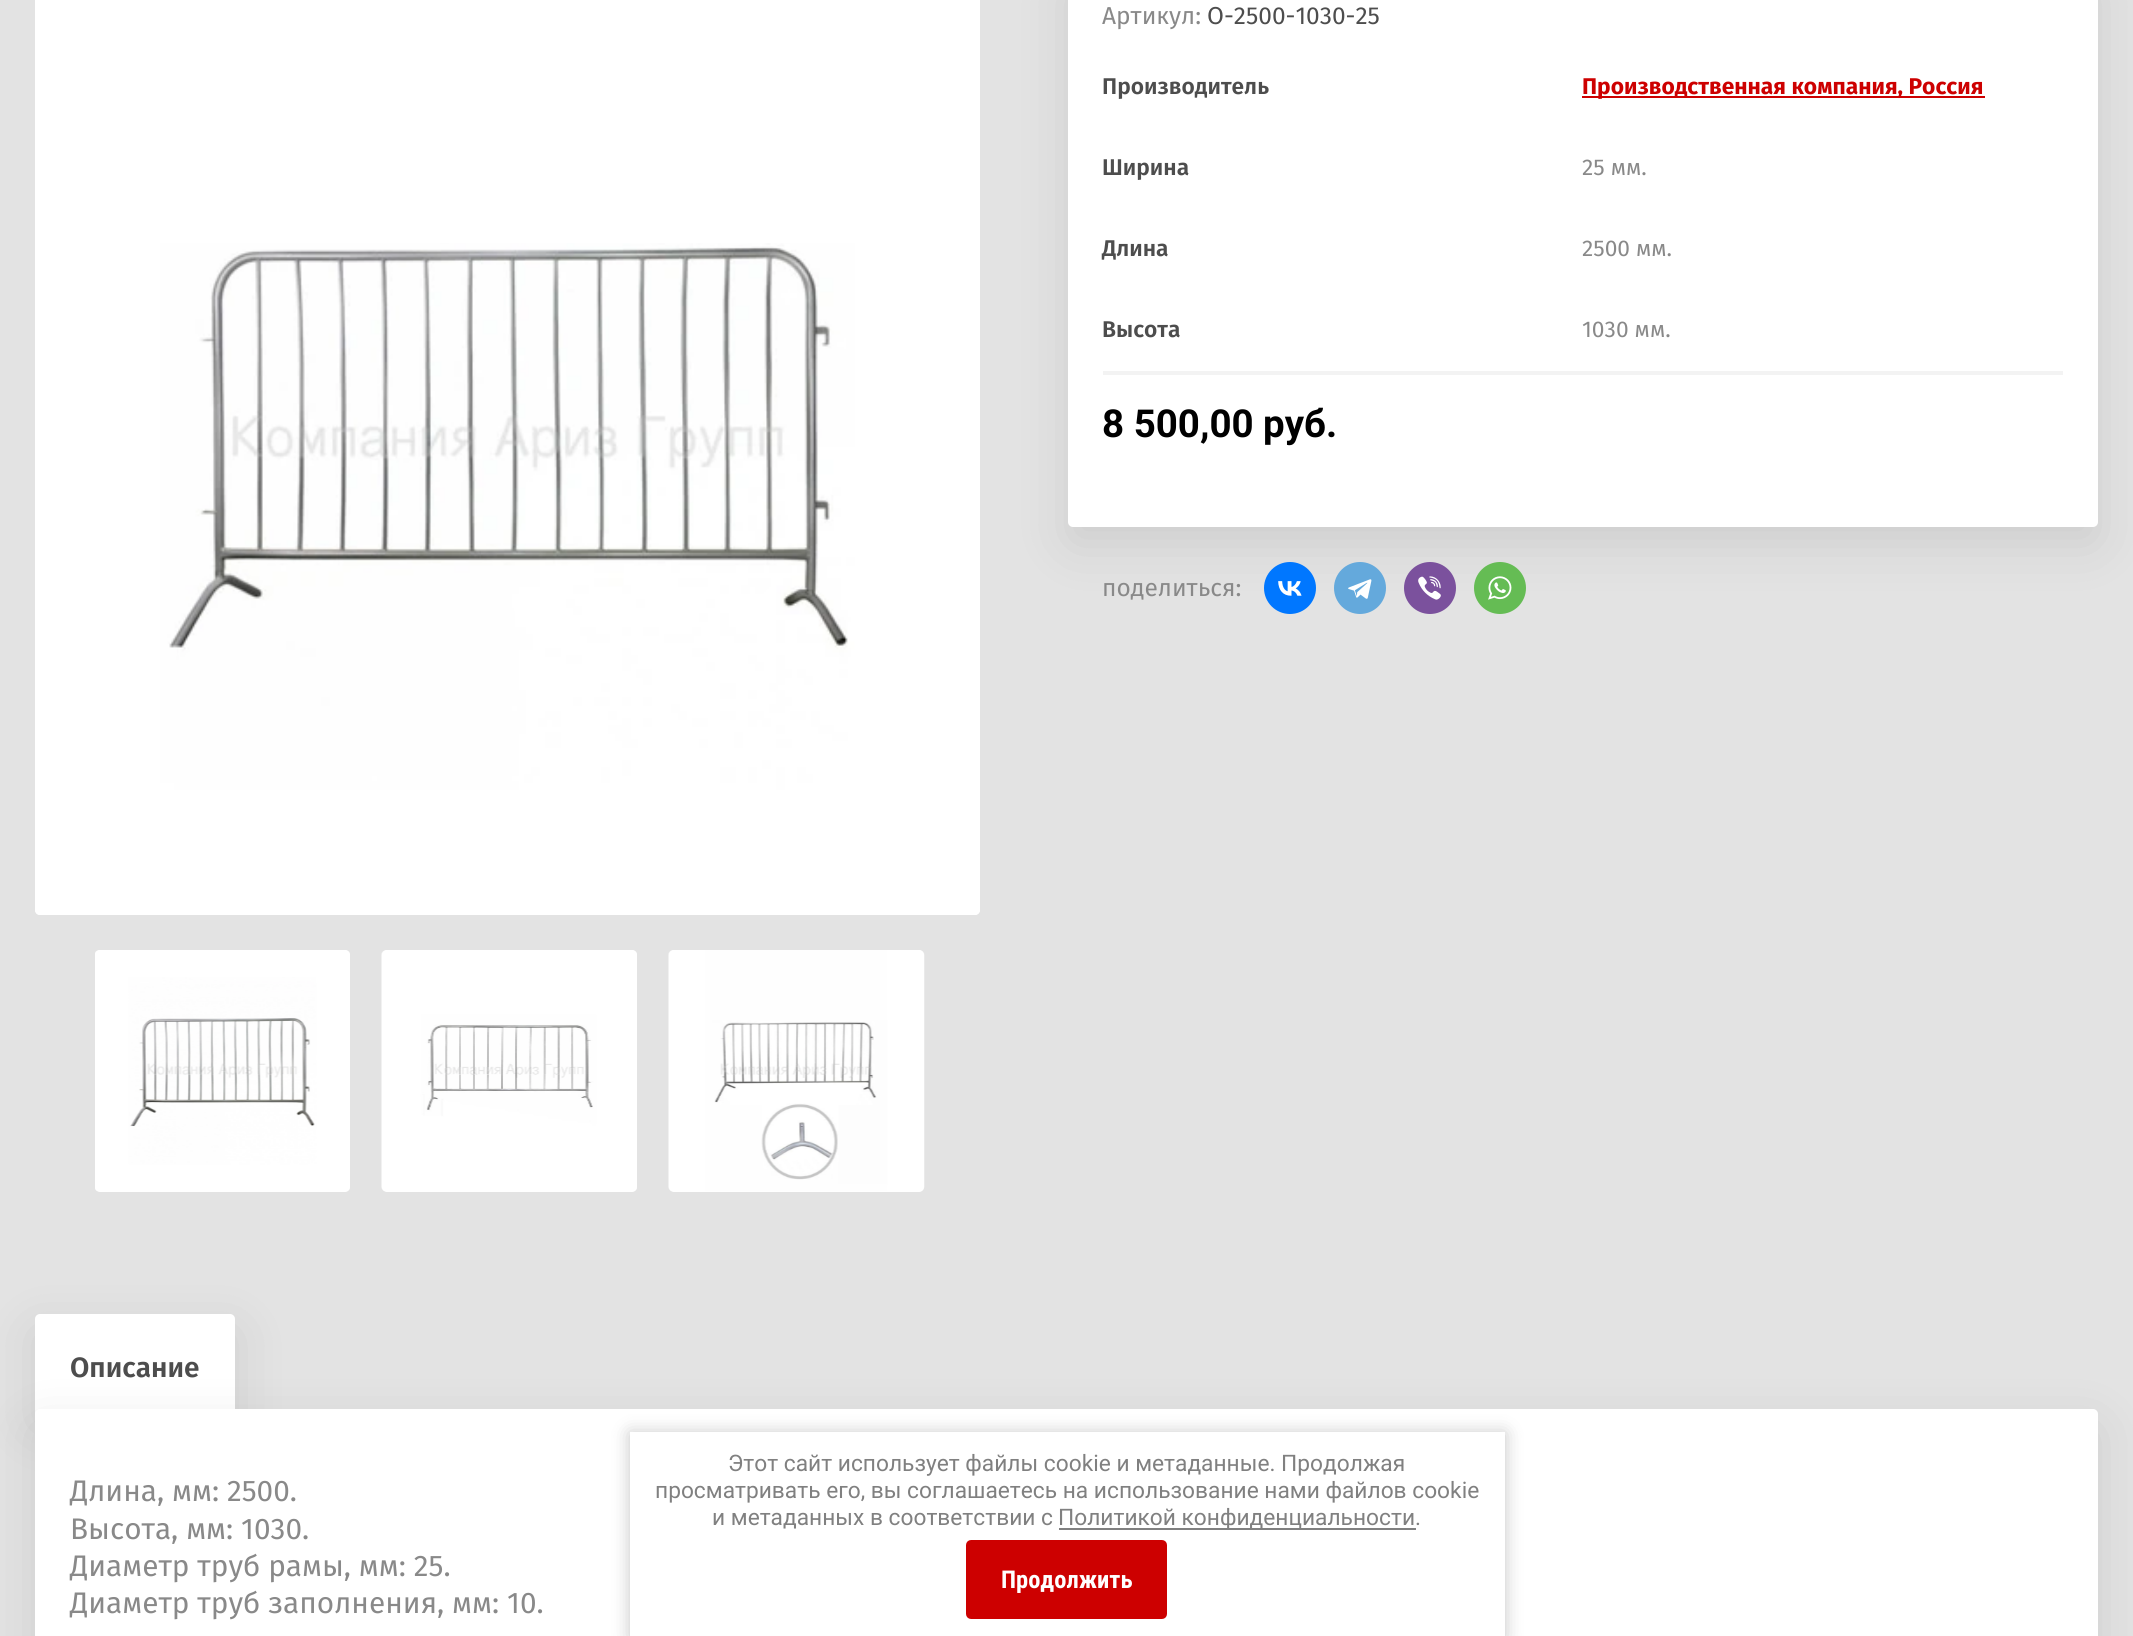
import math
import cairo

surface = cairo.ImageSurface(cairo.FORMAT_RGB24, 2133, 1636)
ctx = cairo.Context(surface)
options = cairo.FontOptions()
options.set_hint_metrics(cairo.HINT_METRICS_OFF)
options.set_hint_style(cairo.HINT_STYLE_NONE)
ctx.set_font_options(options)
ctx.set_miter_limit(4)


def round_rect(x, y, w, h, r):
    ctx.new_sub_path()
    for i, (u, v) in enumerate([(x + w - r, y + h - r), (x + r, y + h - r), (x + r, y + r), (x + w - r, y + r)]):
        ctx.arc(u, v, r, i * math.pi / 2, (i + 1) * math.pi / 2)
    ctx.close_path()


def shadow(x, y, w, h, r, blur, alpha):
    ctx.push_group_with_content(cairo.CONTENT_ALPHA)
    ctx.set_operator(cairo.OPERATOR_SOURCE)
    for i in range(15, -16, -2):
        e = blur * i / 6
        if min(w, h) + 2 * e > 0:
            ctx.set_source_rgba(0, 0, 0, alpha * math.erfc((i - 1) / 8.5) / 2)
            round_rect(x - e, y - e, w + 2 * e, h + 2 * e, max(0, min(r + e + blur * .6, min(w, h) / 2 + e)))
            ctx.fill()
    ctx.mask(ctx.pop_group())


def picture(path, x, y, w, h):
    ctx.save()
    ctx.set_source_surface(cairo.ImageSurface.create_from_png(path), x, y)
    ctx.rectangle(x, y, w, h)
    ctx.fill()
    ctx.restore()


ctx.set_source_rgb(0.89, 0.89, 0.89)
ctx.paint()
ctx.set_source_rgb(1, 1, 1)
round_rect(35, -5, 945, 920, 5)
ctx.fill()
picture("img1.png", 35, 243, 945, 672)
round_rect(95, 950, 255, 242, 5)
ctx.fill()
picture("img2.png", 95, 950, 255, 241)
round_rect(382, 950, 255, 242, 5)
ctx.fill()
picture("img3.png", 381, 950, 256, 241)
round_rect(669, 950, 255, 242, 5)
ctx.fill()
picture("img4.png", 668, 950, 257, 241)
ctx.set_source_rgb(0, 0, 0)
shadow(1068, -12, 1030, 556, 5, 25.5, 0.1)
ctx.set_source_rgb(1, 1, 1)
round_rect(1068, -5, 1030, 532, 5)
ctx.fill()
ctx.select_font_face("Fira Sans")
ctx.set_font_size(24.5)
ctx.set_source_rgb(0.537, 0.537, 0.537)
ctx.move_to(1102, 24)
ctx.show_text("Артикул:")
ctx.set_source_rgb(0.302, 0.302, 0.302)
ctx.move_to(1207, 24)
ctx.show_text("О-2500-1030-25")
ctx.select_font_face("Fira Sans SemiBold")
ctx.set_font_size(22.75)
ctx.move_to(1102, 94)
ctx.show_text("Производитель")
ctx.set_source_rgb(0.804, 0, 0)
ctx.rectangle(1582, 96, 403, 2)
ctx.fill()
ctx.select_font_face("Fira Sans", cairo.FONT_SLANT_NORMAL, cairo.FONT_WEIGHT_BOLD)
ctx.move_to(1582, 94)
ctx.show_text("Производственная компания, Россия")
ctx.select_font_face("Fira Sans SemiBold")
ctx.set_source_rgb(0.302, 0.302, 0.302)
ctx.move_to(1102, 175)
ctx.show_text("Ширина")
ctx.select_font_face("Fira Sans")
ctx.set_source_rgb(0.537, 0.537, 0.537)
ctx.move_to(1582, 175)
ctx.show_text("25 мм.")
ctx.select_font_face("Fira Sans SemiBold")
ctx.set_source_rgb(0.302, 0.302, 0.302)
ctx.move_to(1102, 256)
ctx.show_text("Длина")
ctx.select_font_face("Fira Sans")
ctx.set_source_rgb(0.537, 0.537, 0.537)
ctx.move_to(1582, 256)
ctx.show_text("2500 мм.")
ctx.select_font_face("Fira Sans SemiBold")
ctx.set_source_rgb(0.302, 0.302, 0.302)
ctx.move_to(1102, 337)
ctx.show_text("Высота")
ctx.select_font_face("Fira Sans")
ctx.set_source_rgb(0.537, 0.537, 0.537)
ctx.move_to(1582, 337)
ctx.show_text("1030 мм.")
ctx.set_source_rgb(0.953, 0.953, 0.953)
ctx.rectangle(1103, 371, 960, 4)
ctx.fill()
ctx.select_font_face("Roboto", cairo.FONT_SLANT_NORMAL, cairo.FONT_WEIGHT_BOLD)
ctx.set_font_size(38.5)
ctx.set_source_rgb(0, 0, 0)
ctx.move_to(1102, 437)
ctx.show_text("8 500,00")
ctx.select_font_face("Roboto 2", cairo.FONT_SLANT_NORMAL, cairo.FONT_WEIGHT_BOLD)
ctx.move_to(1263, 437)
ctx.show_text("руб")
ctx.select_font_face("Roboto", cairo.FONT_SLANT_NORMAL, cairo.FONT_WEIGHT_BOLD)
ctx.move_to(1326, 437)
ctx.show_text(".")
ctx.select_font_face("Fira Sans")
ctx.set_font_size(24.5)
ctx.set_source_rgb(0.537, 0.537, 0.537)
ctx.move_to(1102, 596)
ctx.show_text("поделиться:")
ctx.set_source_rgb(0, 0.467, 1)
ctx.new_path()
ctx.arc(1290, 588, 26, 0, 2 * math.pi)
ctx.fill()
picture("img5.png", 1278, 581, 24, 15)
ctx.set_source_rgb(0.392, 0.663, 0.863)
ctx.arc(1360, 588, 26, 0, 2 * math.pi)
ctx.fill()
picture("img6.png", 1348, 579, 24, 20)
ctx.set_source_rgb(0.482, 0.318, 0.616)
ctx.arc(1430, 588, 26, 0, 2 * math.pi)
ctx.fill()
picture("img7.png", 1418, 576, 23, 24)
ctx.set_source_rgb(0.396, 0.737, 0.329)
ctx.arc(1500, 588, 26, 0, 2 * math.pi)
ctx.fill()
picture("img8.png", 1488, 576, 24, 24)
ctx.set_source_rgb(0, 0, 0)
shadow(35, 1332, 200, 94, 0, 25.5, 0.1)
ctx.set_source_rgb(1, 1, 1)
round_rect(35, 1314, 200, 116, 5)
ctx.fill()
ctx.select_font_face("Fira Sans SemiBold")
ctx.set_font_size(28)
ctx.set_source_rgb(0.302, 0.302, 0.302)
ctx.move_to(70, 1377)
ctx.show_text("Описание")
ctx.set_source_rgb(0, 0, 0)
shadow(35, 1426, 2063, 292, 5, 25.5, 0.1)
ctx.set_source_rgb(1, 1, 1)
round_rect(35, 1409, 2063, 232, 5)
ctx.fill()
ctx.select_font_face("Fira Sans")
ctx.set_font_size(29.75)
ctx.set_source_rgb(0.537, 0.537, 0.537)
ctx.move_to(70, 1501)
ctx.show_text("Длина, мм: 2500.")
ctx.move_to(70, 1539)
ctx.show_text("Высота, мм: 1030.")
ctx.move_to(70, 1576)
ctx.show_text("Диаметр труб рамы, мм: 25.")
ctx.move_to(70, 1613)
ctx.show_text("Диаметр труб заполнения, мм: 10.")
ctx.save()
ctx.set_fill_rule(cairo.FILL_RULE_EVEN_ODD)
ctx.new_path()
ctx.move_to(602, 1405)
ctx.line_to(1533, 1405)
ctx.line_to(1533, 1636)
ctx.line_to(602, 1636)
ctx.close_path()
ctx.move_to(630, 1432)
ctx.line_to(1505, 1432)
ctx.line_to(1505, 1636)
ctx.line_to(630, 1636)
ctx.close_path()
ctx.clip()
ctx.set_source_rgb(0, 0, 0)
shadow(630, 1433, 875, 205, 0, 9, 0.23)
ctx.restore()
ctx.select_font_face("Roboto")
ctx.set_font_size(22.75)
ctx.set_source_rgb(0.502, 0.502, 0.502)
ctx.move_to(728, 1471)
ctx.show_text("Этот сайт использует файлы cookie и метаданные. Продолжая")
ctx.move_to(655, 1498)
ctx.show_text("просматривать его, вы соглашаетесь на использование нами файлов cookie")
ctx.move_to(712, 1525)
ctx.show_text("и метаданных в соответствии с")
ctx.rectangle(1059, 1528, 357, 2)
ctx.fill()
ctx.move_to(1058, 1525)
ctx.show_text("Политикой конфиденциальности.")
ctx.set_source_rgb(0.804, 0, 0)
round_rect(968, 1542, 197, 75, 3)
ctx.fill_preserve()
ctx.set_line_width(4)
ctx.stroke()
ctx.select_font_face("Roboto Condensed", cairo.FONT_SLANT_NORMAL, cairo.FONT_WEIGHT_BOLD)
ctx.set_font_size(24.5)
ctx.set_source_rgb(1, 1, 1)
ctx.move_to(1001, 1588)
ctx.show_text("Продолжить")
surface.write_to_png("page.png")
